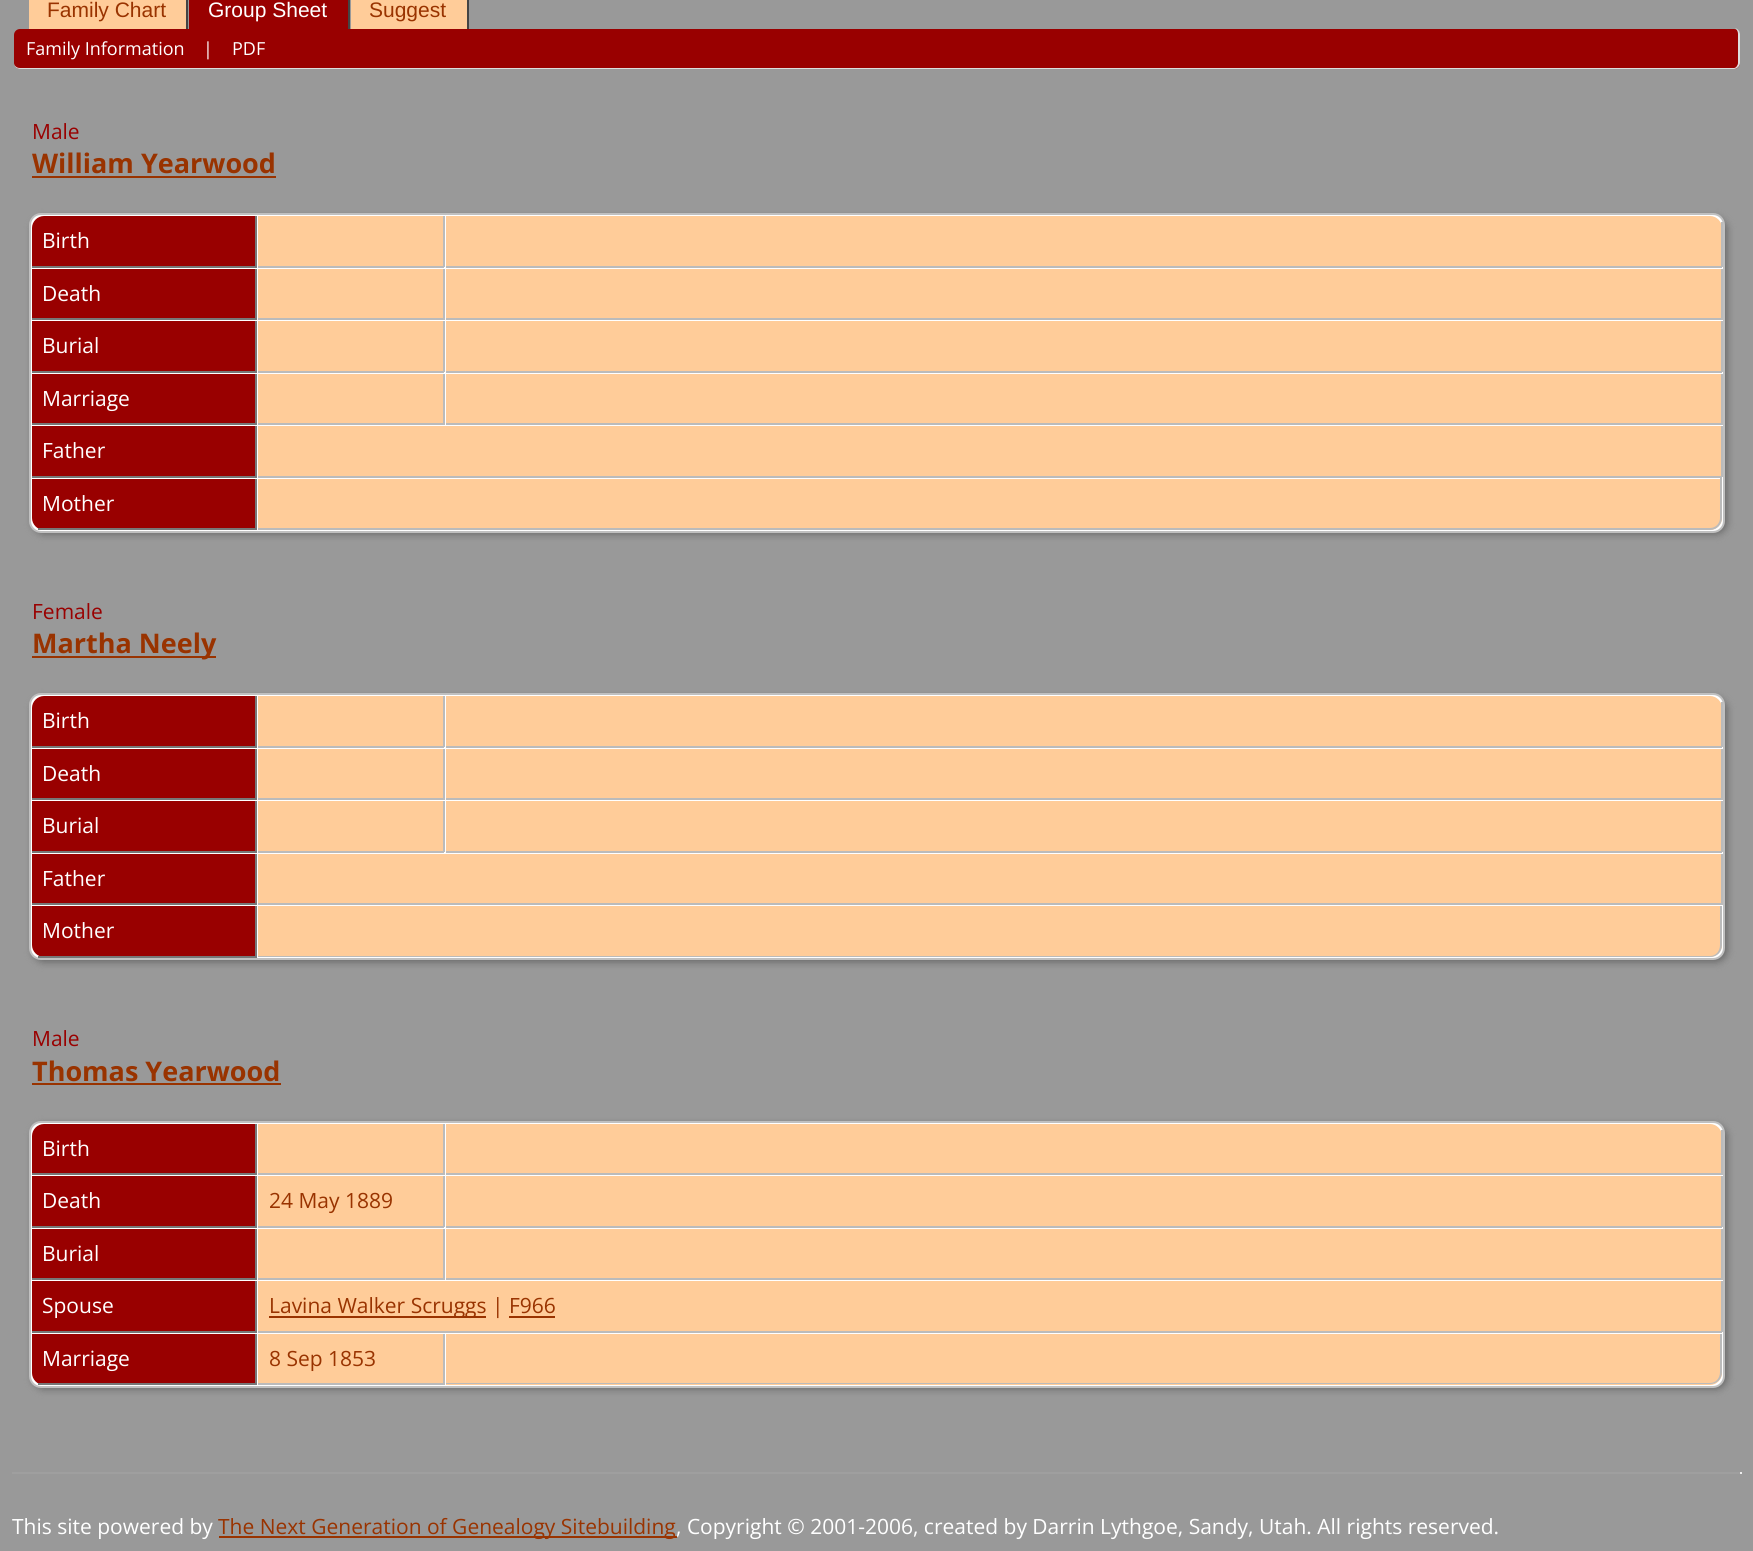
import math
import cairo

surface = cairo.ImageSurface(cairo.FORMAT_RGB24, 1753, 1551)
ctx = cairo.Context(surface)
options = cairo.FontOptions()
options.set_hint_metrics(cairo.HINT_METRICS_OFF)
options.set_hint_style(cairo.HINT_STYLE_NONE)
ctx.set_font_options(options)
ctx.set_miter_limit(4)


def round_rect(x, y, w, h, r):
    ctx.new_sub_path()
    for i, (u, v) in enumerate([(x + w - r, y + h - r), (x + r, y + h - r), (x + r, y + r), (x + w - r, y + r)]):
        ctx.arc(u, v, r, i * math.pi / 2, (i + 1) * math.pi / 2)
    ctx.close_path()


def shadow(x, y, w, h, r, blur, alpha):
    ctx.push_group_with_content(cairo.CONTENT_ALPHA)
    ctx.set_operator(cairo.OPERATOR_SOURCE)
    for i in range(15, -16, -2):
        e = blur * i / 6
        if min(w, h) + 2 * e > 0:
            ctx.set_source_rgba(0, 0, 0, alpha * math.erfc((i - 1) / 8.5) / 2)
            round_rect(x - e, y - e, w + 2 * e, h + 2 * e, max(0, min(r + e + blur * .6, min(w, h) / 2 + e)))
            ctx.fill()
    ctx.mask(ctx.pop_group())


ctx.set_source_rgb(0.6, 0.6, 0.6)
ctx.paint()
ctx.set_source_rgb(1, 0.8, 0.6)
ctx.rectangle(29, 0, 157, 29)
ctx.fill()
ctx.set_source_rgb(0.267, 0.267, 0.267)
ctx.rectangle(186, 0, 2, 29)
ctx.fill()
ctx.select_font_face("Liberation Sans")
ctx.set_font_size(21)
ctx.set_source_rgb(0.6, 0.2, 0)
ctx.move_to(47, 17)
ctx.show_text("Family Chart")
ctx.set_source_rgb(1, 0.8, 0.6)
ctx.rectangle(351, 0, 116, 29)
ctx.fill()
ctx.set_source_rgb(0.267, 0.267, 0.267)
ctx.rectangle(467, 0, 2, 29)
ctx.fill()
ctx.set_source_rgb(0.6, 0, 0)
round_rect(14, 29, 1726, 40, 6)
ctx.fill()
ctx.set_source_rgb(0.867, 0.867, 0.867)
ctx.set_fill_rule(cairo.FILL_RULE_EVEN_ODD)
ctx.new_path()
ctx.move_to(20, 28)
ctx.line_to(1734, 28)
ctx.curve_to(1737, 28, 1740, 31, 1740, 34)
ctx.line_to(1740, 63)
ctx.curve_to(1740, 66, 1737, 69, 1734, 69)
ctx.line_to(20, 69)
ctx.curve_to(16, 69, 14, 66, 14, 63)
ctx.line_to(14, 34)
ctx.curve_to(14, 31, 16, 28, 20, 28)
ctx.close_path()
ctx.move_to(20, 28)
ctx.line_to(1734, 28)
ctx.curve_to(1736, 28, 1738, 31, 1738, 34)
ctx.line_to(1738, 63)
ctx.curve_to(1738, 65, 1736, 68, 1734, 68)
ctx.line_to(20, 68)
ctx.curve_to(16, 68, 14, 65, 14, 63)
ctx.line_to(14, 34)
ctx.curve_to(14, 31, 16, 28, 20, 28)
ctx.close_path()
ctx.fill()
ctx.set_source_rgb(0.6, 0, 0)
ctx.rectangle(189, 0, 159, 29)
ctx.fill()
ctx.set_source_rgb(0.267, 0.267, 0.267)
ctx.rectangle(348, 0, 2, 29)
ctx.fill()
ctx.set_source_rgb(1, 1, 1)
ctx.move_to(208, 17)
ctx.show_text("Group Sheet")
ctx.set_source_rgb(0.6, 0.2, 0)
ctx.move_to(369, 17)
ctx.show_text("Suggest")
ctx.select_font_face("Open Sans")
ctx.set_font_size(18)
ctx.set_source_rgb(1, 1, 1)
ctx.move_to(26, 55)
ctx.show_text("Family Information")
ctx.move_to(203, 55)
ctx.show_text("|")
ctx.move_to(232, 55)
ctx.show_text("PDF")
ctx.set_font_size(21)
ctx.set_source_rgb(0.6, 0, 0)
ctx.move_to(32, 139)
ctx.show_text("Male")
ctx.select_font_face("Open Sans", cairo.FONT_SLANT_NORMAL, cairo.FONT_WEIGHT_BOLD)
ctx.set_font_size(27)
ctx.set_source_rgb(0.6, 0.2, 0)
ctx.move_to(32, 173)
ctx.show_text("William Yearwood")
ctx.rectangle(32, 176, 244, 2)
ctx.fill()
ctx.set_source_rgb(0.4, 0.4, 0.4)
shadow(33, 218, 1694, 316, 11, 4, 1)
ctx.set_source_rgb(1, 1, 1)
round_rect(30, 214, 1694, 318, 11)
ctx.fill_preserve()
ctx.set_source_rgb(0.753, 0.753, 0.753)
ctx.stroke()
ctx.set_source_rgb(0.6, 0, 0)
ctx.new_path()
ctx.move_to(44, 216)
ctx.line_to(257, 216)
ctx.line_to(257, 267)
ctx.line_to(32, 267)
ctx.line_to(32, 228)
ctx.curve_to(32, 221.5, 37.5, 216, 44, 216)
ctx.close_path()
ctx.fill()
ctx.set_source_rgb(0.467, 0.467, 0.467)
ctx.rectangle(255, 216, 2, 51)
ctx.fill()
ctx.rectangle(32, 266, 225, 2)
ctx.fill()
ctx.select_font_face("Open Sans")
ctx.set_font_size(21)
ctx.set_source_rgb(1, 1, 1)
ctx.move_to(42, 248)
ctx.show_text("Birth")
ctx.set_source_rgb(1, 0.8, 0.6)
ctx.rectangle(258, 216, 185, 50)
ctx.fill()
ctx.set_source_rgb(0.733, 0.733, 0.733)
ctx.rectangle(443, 216, 2, 51)
ctx.fill()
ctx.rectangle(258, 266, 186, 2)
ctx.fill()
ctx.set_source_rgb(1, 0.8, 0.6)
ctx.new_path()
ctx.move_to(446, 216)
ctx.line_to(1710, 216)
ctx.curve_to(1716.5, 216, 1722, 221.5, 1722, 228)
ctx.line_to(1722, 267)
ctx.line_to(446, 267)
ctx.close_path()
ctx.fill()
ctx.set_source_rgb(0.733, 0.733, 0.733)
ctx.rectangle(1721, 222, 2, 45)
ctx.fill()
ctx.rectangle(446, 266, 1276, 2)
ctx.fill()
ctx.set_source_rgb(0.6, 0, 0)
ctx.rectangle(32, 269, 223, 49)
ctx.fill()
ctx.set_source_rgb(0.467, 0.467, 0.467)
ctx.rectangle(255, 269, 2, 51)
ctx.fill()
ctx.rectangle(32, 318, 225, 2)
ctx.fill()
ctx.set_source_rgb(1, 1, 1)
ctx.move_to(42, 301)
ctx.show_text("Death")
ctx.set_source_rgb(1, 0.8, 0.6)
ctx.rectangle(258, 269, 185, 49)
ctx.fill()
ctx.set_source_rgb(0.733, 0.733, 0.733)
ctx.rectangle(443, 269, 2, 51)
ctx.fill()
ctx.rectangle(258, 318, 186, 2)
ctx.fill()
ctx.set_source_rgb(1, 0.8, 0.6)
ctx.rectangle(446, 269, 1275, 49)
ctx.fill()
ctx.set_source_rgb(0.733, 0.733, 0.733)
ctx.rectangle(1721, 269, 2, 51)
ctx.fill()
ctx.rectangle(446, 318, 1276, 2)
ctx.fill()
ctx.set_source_rgb(0.6, 0, 0)
ctx.rectangle(32, 321, 223, 50)
ctx.fill()
ctx.set_source_rgb(0.467, 0.467, 0.467)
ctx.rectangle(255, 321, 2, 51)
ctx.fill()
ctx.rectangle(32, 371, 225, 2)
ctx.fill()
ctx.set_source_rgb(1, 1, 1)
ctx.move_to(42, 353)
ctx.show_text("Burial")
ctx.set_source_rgb(1, 0.8, 0.6)
ctx.rectangle(258, 321, 185, 50)
ctx.fill()
ctx.set_source_rgb(0.733, 0.733, 0.733)
ctx.rectangle(443, 321, 2, 51)
ctx.fill()
ctx.rectangle(258, 371, 186, 2)
ctx.fill()
ctx.set_source_rgb(1, 0.8, 0.6)
ctx.rectangle(446, 321, 1275, 50)
ctx.fill()
ctx.set_source_rgb(0.733, 0.733, 0.733)
ctx.rectangle(1721, 321, 2, 51)
ctx.fill()
ctx.rectangle(446, 371, 1276, 2)
ctx.fill()
ctx.set_source_rgb(0.6, 0, 0)
ctx.rectangle(32, 374, 223, 49)
ctx.fill()
ctx.set_source_rgb(0.467, 0.467, 0.467)
ctx.rectangle(255, 374, 2, 51)
ctx.fill()
ctx.rectangle(32, 423, 225, 2)
ctx.fill()
ctx.set_source_rgb(1, 1, 1)
ctx.move_to(42, 406)
ctx.show_text("Marriage")
ctx.set_source_rgb(1, 0.8, 0.6)
ctx.rectangle(258, 374, 185, 49)
ctx.fill()
ctx.set_source_rgb(0.733, 0.733, 0.733)
ctx.rectangle(443, 374, 2, 51)
ctx.fill()
ctx.rectangle(258, 423, 186, 2)
ctx.fill()
ctx.set_source_rgb(1, 0.8, 0.6)
ctx.rectangle(446, 374, 1275, 49)
ctx.fill()
ctx.set_source_rgb(0.733, 0.733, 0.733)
ctx.rectangle(1721, 374, 2, 51)
ctx.fill()
ctx.rectangle(446, 423, 1276, 2)
ctx.fill()
ctx.set_source_rgb(0.6, 0, 0)
ctx.rectangle(32, 426, 223, 50)
ctx.fill()
ctx.set_source_rgb(0.467, 0.467, 0.467)
ctx.rectangle(255, 426, 2, 51)
ctx.fill()
ctx.rectangle(32, 476, 225, 2)
ctx.fill()
ctx.set_source_rgb(1, 1, 1)
ctx.move_to(42, 458)
ctx.show_text("Father")
ctx.set_source_rgb(1, 0.8, 0.6)
ctx.rectangle(258, 426, 1463, 50)
ctx.fill()
ctx.set_source_rgb(0.733, 0.733, 0.733)
ctx.rectangle(1721, 426, 2, 51)
ctx.fill()
ctx.rectangle(258, 476, 1464, 2)
ctx.fill()
ctx.set_source_rgb(0.6, 0, 0)
ctx.new_path()
ctx.move_to(32, 479)
ctx.line_to(257, 479)
ctx.line_to(257, 530)
ctx.line_to(44, 530)
ctx.curve_to(37.5, 530, 32, 524.5, 32, 518)
ctx.close_path()
ctx.fill()
ctx.set_source_rgb(0.467, 0.467, 0.467)
ctx.rectangle(255, 479, 2, 51)
ctx.fill()
ctx.rectangle(38, 528, 219, 2)
ctx.fill()
ctx.set_source_rgb(1, 1, 1)
ctx.move_to(42, 511)
ctx.show_text("Mother")
ctx.set_source_rgb(1, 0.8, 0.6)
ctx.new_path()
ctx.move_to(258, 479)
ctx.line_to(1722, 479)
ctx.line_to(1722, 518)
ctx.curve_to(1722, 524.5, 1716.5, 530, 1710, 530)
ctx.line_to(258, 530)
ctx.close_path()
ctx.fill()
ctx.set_source_rgb(0.733, 0.733, 0.733)
ctx.new_path()
ctx.move_to(258, 478)
ctx.line_to(1722, 478)
ctx.line_to(1722, 518)
ctx.curve_to(1722, 524, 1717, 530, 1710, 530)
ctx.line_to(258, 530)
ctx.close_path()
ctx.move_to(258, 478)
ctx.line_to(1720, 478)
ctx.line_to(1720, 518)
ctx.curve_to(1720, 523, 1716, 528, 1710, 528)
ctx.line_to(258, 528)
ctx.close_path()
ctx.fill()
ctx.set_source_rgb(0.6, 0, 0)
ctx.move_to(32, 619)
ctx.show_text("Female")
ctx.set_source_rgb(0.6, 0.2, 0)
ctx.rectangle(32, 656, 184, 2)
ctx.fill()
ctx.select_font_face("Open Sans", cairo.FONT_SLANT_NORMAL, cairo.FONT_WEIGHT_BOLD)
ctx.set_font_size(27)
ctx.move_to(32, 653)
ctx.show_text("Martha Neely")
ctx.set_source_rgb(0.4, 0.4, 0.4)
shadow(33, 698, 1694, 264, 11, 4, 1)
ctx.set_source_rgb(1, 1, 1)
round_rect(30, 694, 1694, 265, 11)
ctx.fill_preserve()
ctx.set_source_rgb(0.753, 0.753, 0.753)
ctx.stroke()
ctx.set_source_rgb(0.6, 0, 0)
ctx.new_path()
ctx.move_to(44, 696)
ctx.line_to(257, 696)
ctx.line_to(257, 747)
ctx.line_to(32, 747)
ctx.line_to(32, 708)
ctx.curve_to(32, 701.5, 37.5, 696, 44, 696)
ctx.close_path()
ctx.fill()
ctx.set_source_rgb(0.467, 0.467, 0.467)
ctx.rectangle(255, 696, 2, 51)
ctx.fill()
ctx.rectangle(32, 746, 225, 2)
ctx.fill()
ctx.select_font_face("Open Sans")
ctx.set_font_size(21)
ctx.set_source_rgb(1, 1, 1)
ctx.move_to(42, 728)
ctx.show_text("Birth")
ctx.set_source_rgb(1, 0.8, 0.6)
ctx.rectangle(258, 696, 185, 50)
ctx.fill()
ctx.set_source_rgb(0.733, 0.733, 0.733)
ctx.rectangle(443, 696, 2, 51)
ctx.fill()
ctx.rectangle(258, 746, 186, 2)
ctx.fill()
ctx.set_source_rgb(1, 0.8, 0.6)
ctx.new_path()
ctx.move_to(446, 696)
ctx.line_to(1710, 696)
ctx.curve_to(1716.5, 696, 1722, 701.5, 1722, 708)
ctx.line_to(1722, 747)
ctx.line_to(446, 747)
ctx.close_path()
ctx.fill()
ctx.set_source_rgb(0.733, 0.733, 0.733)
ctx.rectangle(1721, 702, 2, 45)
ctx.fill()
ctx.rectangle(446, 746, 1276, 2)
ctx.fill()
ctx.set_source_rgb(0.6, 0, 0)
ctx.rectangle(32, 749, 223, 49)
ctx.fill()
ctx.set_source_rgb(0.467, 0.467, 0.467)
ctx.rectangle(255, 749, 2, 51)
ctx.fill()
ctx.rectangle(32, 798, 225, 2)
ctx.fill()
ctx.set_source_rgb(1, 1, 1)
ctx.move_to(42, 781)
ctx.show_text("Death")
ctx.set_source_rgb(1, 0.8, 0.6)
ctx.rectangle(258, 749, 185, 49)
ctx.fill()
ctx.set_source_rgb(0.733, 0.733, 0.733)
ctx.rectangle(443, 749, 2, 51)
ctx.fill()
ctx.rectangle(258, 798, 186, 2)
ctx.fill()
ctx.set_source_rgb(1, 0.8, 0.6)
ctx.rectangle(446, 749, 1275, 49)
ctx.fill()
ctx.set_source_rgb(0.733, 0.733, 0.733)
ctx.rectangle(1721, 749, 2, 51)
ctx.fill()
ctx.rectangle(446, 798, 1276, 2)
ctx.fill()
ctx.set_source_rgb(0.6, 0, 0)
ctx.rectangle(32, 801, 223, 50)
ctx.fill()
ctx.set_source_rgb(0.467, 0.467, 0.467)
ctx.rectangle(255, 801, 2, 51)
ctx.fill()
ctx.rectangle(32, 851, 225, 2)
ctx.fill()
ctx.set_source_rgb(1, 1, 1)
ctx.move_to(42, 833)
ctx.show_text("Burial")
ctx.set_source_rgb(1, 0.8, 0.6)
ctx.rectangle(258, 801, 185, 50)
ctx.fill()
ctx.set_source_rgb(0.733, 0.733, 0.733)
ctx.rectangle(443, 801, 2, 51)
ctx.fill()
ctx.rectangle(258, 851, 186, 2)
ctx.fill()
ctx.set_source_rgb(1, 0.8, 0.6)
ctx.rectangle(446, 801, 1275, 50)
ctx.fill()
ctx.set_source_rgb(0.733, 0.733, 0.733)
ctx.rectangle(1721, 801, 2, 51)
ctx.fill()
ctx.rectangle(446, 851, 1276, 2)
ctx.fill()
ctx.set_source_rgb(0.6, 0, 0)
ctx.rectangle(32, 854, 223, 49)
ctx.fill()
ctx.set_source_rgb(0.467, 0.467, 0.467)
ctx.rectangle(255, 854, 2, 51)
ctx.fill()
ctx.rectangle(32, 903, 225, 2)
ctx.fill()
ctx.set_source_rgb(1, 1, 1)
ctx.move_to(42, 886)
ctx.show_text("Father")
ctx.set_source_rgb(1, 0.8, 0.6)
ctx.rectangle(258, 854, 1463, 49)
ctx.fill()
ctx.set_source_rgb(0.733, 0.733, 0.733)
ctx.rectangle(1721, 854, 2, 51)
ctx.fill()
ctx.rectangle(258, 903, 1464, 2)
ctx.fill()
ctx.set_source_rgb(0.6, 0, 0)
ctx.new_path()
ctx.move_to(32, 906)
ctx.line_to(257, 906)
ctx.line_to(257, 957)
ctx.line_to(44, 957)
ctx.curve_to(37.5, 957, 32, 951.5, 32, 945)
ctx.close_path()
ctx.fill()
ctx.set_source_rgb(0.467, 0.467, 0.467)
ctx.rectangle(255, 906, 2, 51)
ctx.fill()
ctx.rectangle(38, 956, 219, 2)
ctx.fill()
ctx.set_source_rgb(1, 1, 1)
ctx.move_to(42, 938)
ctx.show_text("Mother")
ctx.set_source_rgb(1, 0.8, 0.6)
ctx.new_path()
ctx.move_to(258, 906)
ctx.line_to(1722, 906)
ctx.line_to(1722, 945)
ctx.curve_to(1722, 951.5, 1716.5, 957, 1710, 957)
ctx.line_to(258, 957)
ctx.close_path()
ctx.fill()
ctx.set_source_rgb(0.733, 0.733, 0.733)
ctx.new_path()
ctx.move_to(258, 906)
ctx.line_to(1722, 906)
ctx.line_to(1722, 945)
ctx.curve_to(1722, 952, 1717, 957, 1710, 957)
ctx.line_to(258, 957)
ctx.close_path()
ctx.move_to(258, 906)
ctx.line_to(1720, 906)
ctx.line_to(1720, 945)
ctx.curve_to(1720, 951, 1716, 956, 1710, 956)
ctx.line_to(258, 956)
ctx.close_path()
ctx.fill()
ctx.set_source_rgb(0.6, 0, 0)
ctx.move_to(32, 1046)
ctx.show_text("Male")
ctx.select_font_face("Open Sans", cairo.FONT_SLANT_NORMAL, cairo.FONT_WEIGHT_BOLD)
ctx.set_font_size(27)
ctx.set_source_rgb(0.6, 0.2, 0)
ctx.move_to(32, 1081)
ctx.show_text("Thomas Yearwood")
ctx.rectangle(32, 1083, 249, 2)
ctx.fill()
ctx.set_source_rgb(0.4, 0.4, 0.4)
shadow(33, 1125, 1694, 264, 11, 4, 1)
ctx.set_source_rgb(1, 1, 1)
round_rect(30, 1122, 1694, 265, 11)
ctx.fill_preserve()
ctx.set_source_rgb(0.753, 0.753, 0.753)
ctx.stroke()
ctx.set_source_rgb(0.6, 0, 0)
ctx.new_path()
ctx.move_to(44, 1124)
ctx.line_to(257, 1124)
ctx.line_to(257, 1175)
ctx.line_to(32, 1175)
ctx.line_to(32, 1136)
ctx.curve_to(32, 1129.5, 37.5, 1124, 44, 1124)
ctx.close_path()
ctx.fill()
ctx.set_source_rgb(0.467, 0.467, 0.467)
ctx.rectangle(255, 1124, 2, 51)
ctx.fill()
ctx.rectangle(32, 1173, 225, 2)
ctx.fill()
ctx.select_font_face("Open Sans")
ctx.set_font_size(21)
ctx.set_source_rgb(1, 1, 1)
ctx.move_to(42, 1156)
ctx.show_text("Birth")
ctx.set_source_rgb(1, 0.8, 0.6)
ctx.rectangle(258, 1124, 185, 49)
ctx.fill()
ctx.set_source_rgb(0.733, 0.733, 0.733)
ctx.rectangle(443, 1124, 2, 51)
ctx.fill()
ctx.rectangle(258, 1173, 186, 2)
ctx.fill()
ctx.set_source_rgb(1, 0.8, 0.6)
ctx.new_path()
ctx.move_to(446, 1124)
ctx.line_to(1710, 1124)
ctx.curve_to(1716.5, 1124, 1722, 1129.5, 1722, 1136)
ctx.line_to(1722, 1175)
ctx.line_to(446, 1175)
ctx.close_path()
ctx.fill()
ctx.set_source_rgb(0.733, 0.733, 0.733)
ctx.rectangle(1721, 1130, 2, 45)
ctx.fill()
ctx.rectangle(446, 1173, 1276, 2)
ctx.fill()
ctx.set_source_rgb(0.6, 0, 0)
ctx.rectangle(32, 1176, 223, 50)
ctx.fill()
ctx.set_source_rgb(0.467, 0.467, 0.467)
ctx.rectangle(255, 1176, 2, 51)
ctx.fill()
ctx.rectangle(32, 1226, 225, 2)
ctx.fill()
ctx.set_source_rgb(1, 1, 1)
ctx.move_to(42, 1208)
ctx.show_text("Death")
ctx.set_source_rgb(1, 0.8, 0.6)
ctx.rectangle(258, 1176, 185, 50)
ctx.fill()
ctx.set_source_rgb(0.733, 0.733, 0.733)
ctx.rectangle(443, 1176, 2, 51)
ctx.fill()
ctx.rectangle(258, 1226, 186, 2)
ctx.fill()
ctx.set_source_rgb(0.6, 0.2, 0)
ctx.move_to(269, 1208)
ctx.show_text("24 May 1889")
ctx.set_source_rgb(1, 0.8, 0.6)
ctx.rectangle(446, 1176, 1275, 50)
ctx.fill()
ctx.set_source_rgb(0.733, 0.733, 0.733)
ctx.rectangle(1721, 1176, 2, 51)
ctx.fill()
ctx.rectangle(446, 1226, 1276, 2)
ctx.fill()
ctx.set_source_rgb(0.6, 0, 0)
ctx.rectangle(32, 1229, 223, 49)
ctx.fill()
ctx.set_source_rgb(0.467, 0.467, 0.467)
ctx.rectangle(255, 1229, 2, 51)
ctx.fill()
ctx.rectangle(32, 1278, 225, 2)
ctx.fill()
ctx.set_source_rgb(1, 1, 1)
ctx.move_to(42, 1261)
ctx.show_text("Burial")
ctx.set_source_rgb(1, 0.8, 0.6)
ctx.rectangle(258, 1229, 185, 49)
ctx.fill()
ctx.set_source_rgb(0.733, 0.733, 0.733)
ctx.rectangle(443, 1229, 2, 51)
ctx.fill()
ctx.rectangle(258, 1278, 186, 2)
ctx.fill()
ctx.set_source_rgb(1, 0.8, 0.6)
ctx.rectangle(446, 1229, 1275, 49)
ctx.fill()
ctx.set_source_rgb(0.733, 0.733, 0.733)
ctx.rectangle(1721, 1229, 2, 51)
ctx.fill()
ctx.rectangle(446, 1278, 1276, 2)
ctx.fill()
ctx.set_source_rgb(0.6, 0, 0)
ctx.rectangle(32, 1281, 223, 50)
ctx.fill()
ctx.set_source_rgb(0.467, 0.467, 0.467)
ctx.rectangle(255, 1281, 2, 51)
ctx.fill()
ctx.rectangle(32, 1331, 225, 2)
ctx.fill()
ctx.set_source_rgb(1, 1, 1)
ctx.move_to(42, 1313)
ctx.show_text("Spouse")
ctx.set_source_rgb(1, 0.8, 0.6)
ctx.rectangle(258, 1281, 1463, 50)
ctx.fill()
ctx.set_source_rgb(0.733, 0.733, 0.733)
ctx.rectangle(1721, 1281, 2, 51)
ctx.fill()
ctx.rectangle(258, 1331, 1464, 2)
ctx.fill()
ctx.set_source_rgb(0.6, 0.2, 0)
ctx.rectangle(269, 1316, 217, 2)
ctx.fill()
ctx.move_to(269, 1313)
ctx.show_text("Lavina Walker Scruggs | F966")
ctx.rectangle(509, 1316, 46, 2)
ctx.fill()
ctx.set_source_rgb(0.6, 0, 0)
ctx.new_path()
ctx.move_to(32, 1334)
ctx.line_to(257, 1334)
ctx.line_to(257, 1385)
ctx.line_to(44, 1385)
ctx.curve_to(37.5, 1385, 32, 1379.5, 32, 1373)
ctx.close_path()
ctx.fill()
ctx.set_source_rgb(0.467, 0.467, 0.467)
ctx.rectangle(255, 1334, 2, 51)
ctx.fill()
ctx.rectangle(38, 1383, 219, 2)
ctx.fill()
ctx.set_source_rgb(1, 1, 1)
ctx.move_to(42, 1366)
ctx.show_text("Marriage")
ctx.set_source_rgb(1, 0.8, 0.6)
ctx.rectangle(258, 1334, 185, 49)
ctx.fill()
ctx.set_source_rgb(0.733, 0.733, 0.733)
ctx.rectangle(443, 1334, 2, 51)
ctx.fill()
ctx.rectangle(258, 1383, 186, 2)
ctx.fill()
ctx.set_source_rgb(0.6, 0.2, 0)
ctx.move_to(269, 1366)
ctx.show_text("8 Sep 1853")
ctx.set_source_rgb(1, 0.8, 0.6)
ctx.new_path()
ctx.move_to(446, 1334)
ctx.line_to(1722, 1334)
ctx.line_to(1722, 1373)
ctx.curve_to(1722, 1379.5, 1716.5, 1385, 1710, 1385)
ctx.line_to(446, 1385)
ctx.close_path()
ctx.fill()
ctx.set_source_rgb(0.733, 0.733, 0.733)
ctx.new_path()
ctx.move_to(446, 1334)
ctx.line_to(1722, 1334)
ctx.line_to(1722, 1372)
ctx.curve_to(1722, 1379, 1717, 1384, 1710, 1384)
ctx.line_to(446, 1384)
ctx.close_path()
ctx.move_to(446, 1334)
ctx.line_to(1720, 1334)
ctx.line_to(1720, 1372)
ctx.curve_to(1720, 1378, 1716, 1383, 1710, 1383)
ctx.line_to(446, 1383)
ctx.close_path()
ctx.fill()
ctx.set_source_rgb(0.624, 0.624, 0.624)
ctx.rectangle(12, 1472, 1730, 2)
ctx.fill()
ctx.set_source_rgb(0.933, 0.933, 0.933)
ctx.rectangle(1740, 1472, 2, 2)
ctx.fill()
ctx.set_source_rgb(1, 1, 1)
ctx.move_to(12, 1534)
ctx.show_text("This site powered by")
ctx.set_source_rgb(0.6, 0.2, 0)
ctx.rectangle(219, 1536, 458, 2)
ctx.fill()
ctx.move_to(218, 1534)
ctx.show_text("The Next Generation of Genealogy Sitebuilding")
ctx.set_source_rgb(1, 1, 1)
ctx.move_to(676, 1534)
ctx.show_text(", Copyright © 2001-2006, created by Darrin Lythgoe, Sandy, Utah. All rights reserved.")
surface.write_to_png("page.png")
